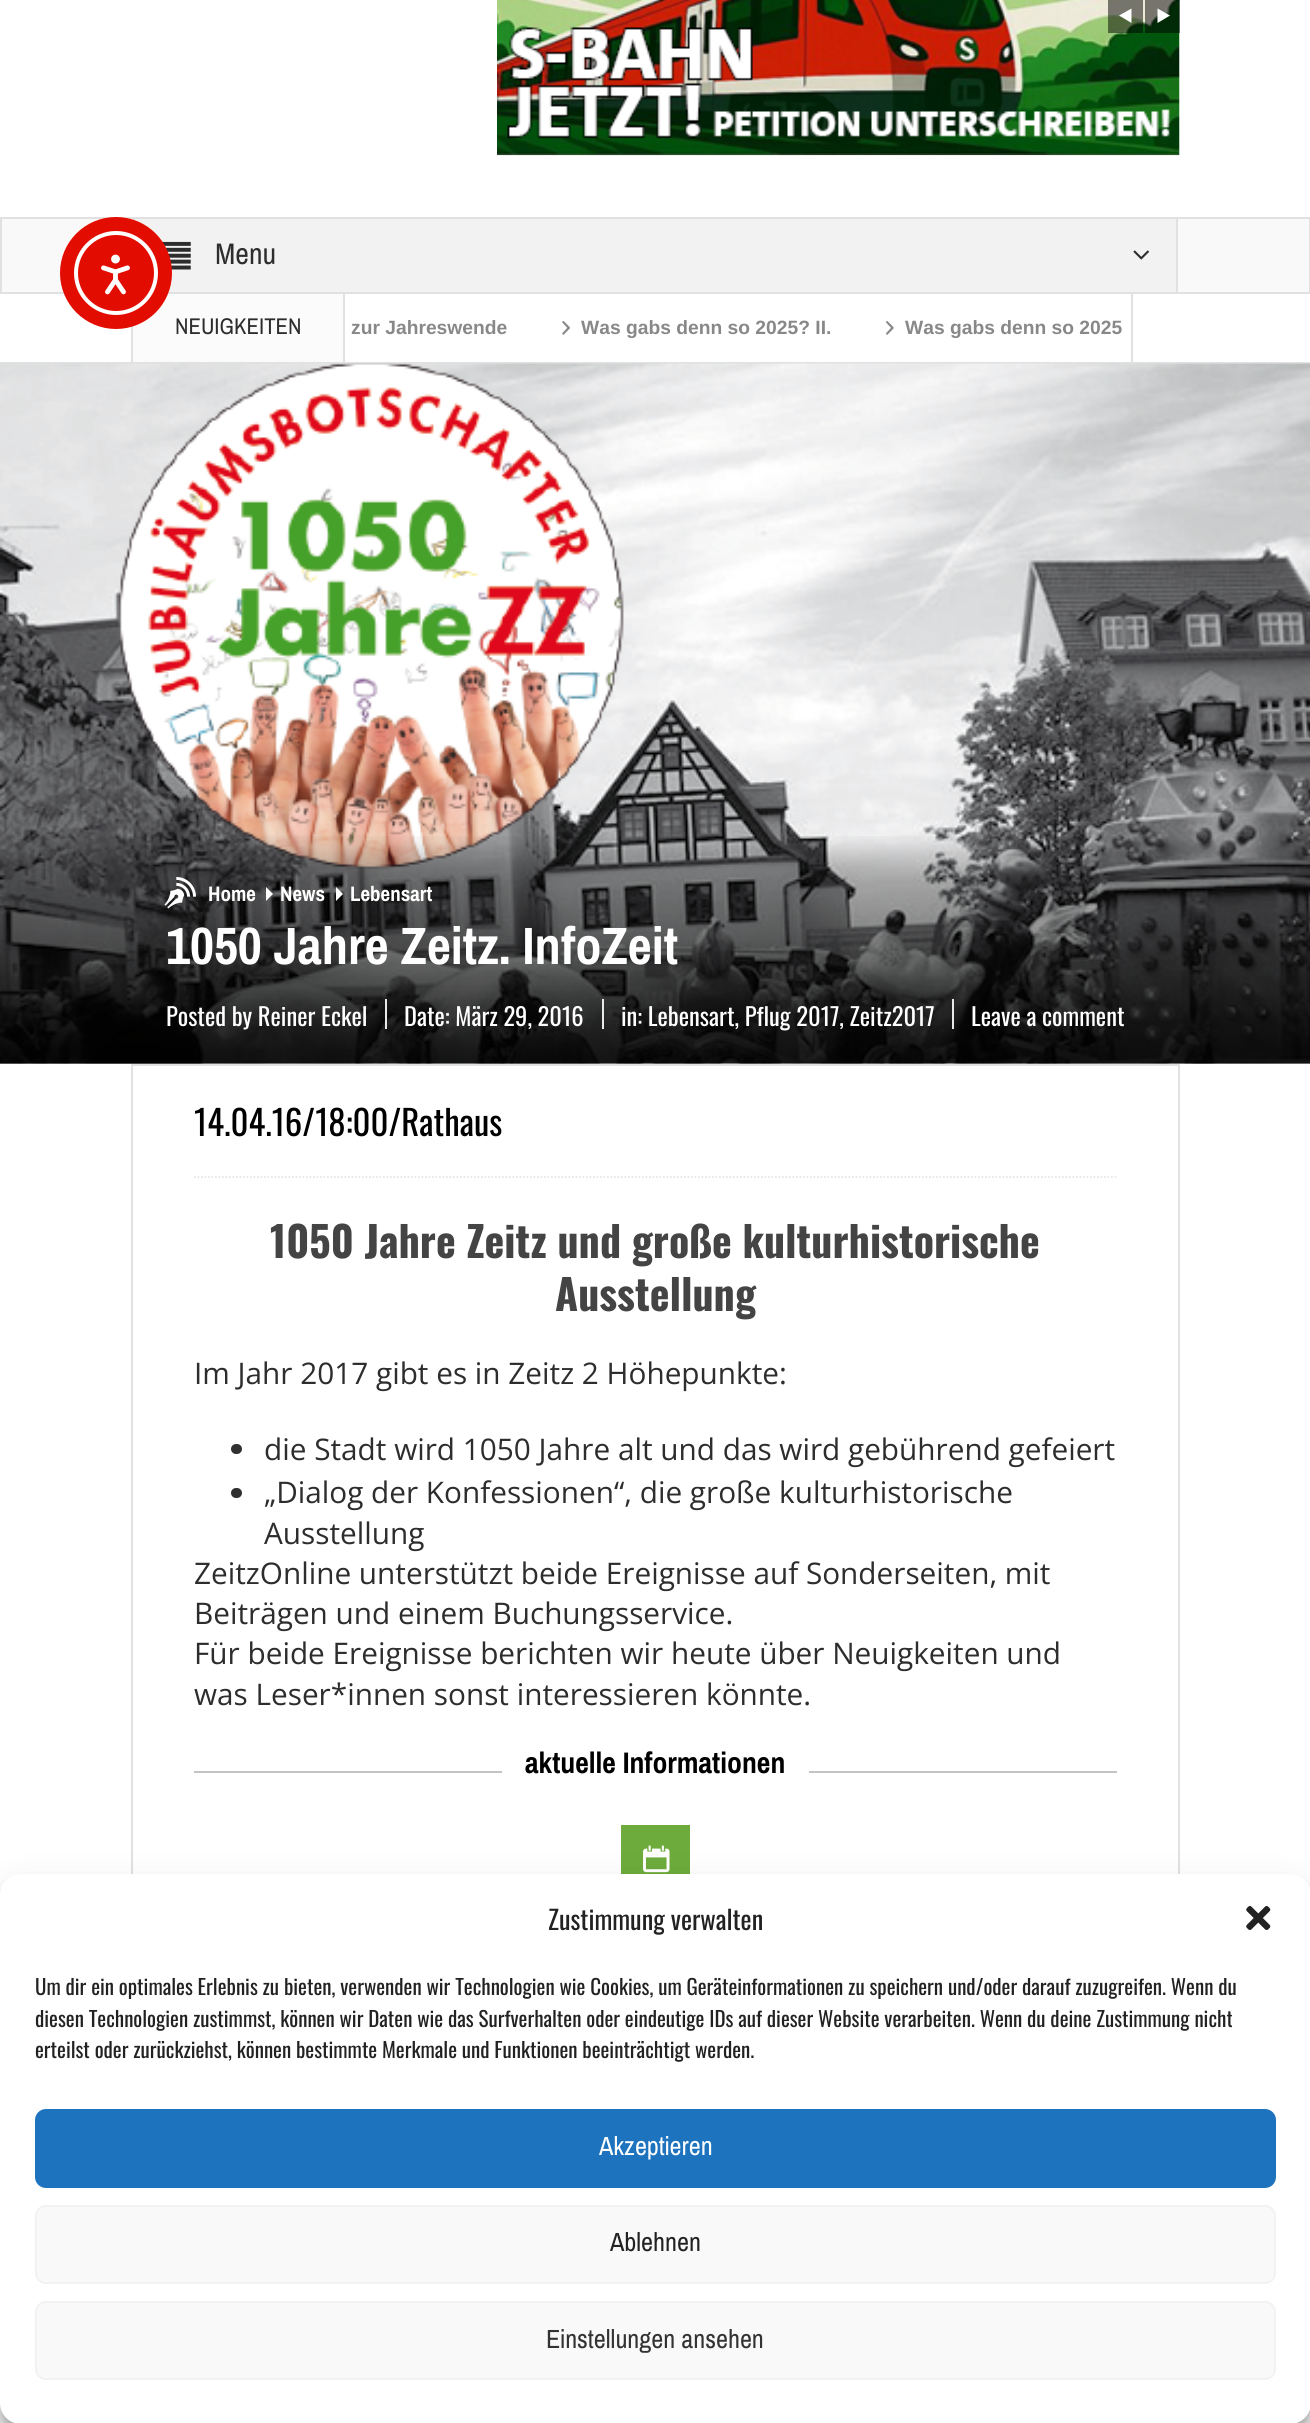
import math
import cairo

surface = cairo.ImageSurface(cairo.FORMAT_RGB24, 1310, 2423)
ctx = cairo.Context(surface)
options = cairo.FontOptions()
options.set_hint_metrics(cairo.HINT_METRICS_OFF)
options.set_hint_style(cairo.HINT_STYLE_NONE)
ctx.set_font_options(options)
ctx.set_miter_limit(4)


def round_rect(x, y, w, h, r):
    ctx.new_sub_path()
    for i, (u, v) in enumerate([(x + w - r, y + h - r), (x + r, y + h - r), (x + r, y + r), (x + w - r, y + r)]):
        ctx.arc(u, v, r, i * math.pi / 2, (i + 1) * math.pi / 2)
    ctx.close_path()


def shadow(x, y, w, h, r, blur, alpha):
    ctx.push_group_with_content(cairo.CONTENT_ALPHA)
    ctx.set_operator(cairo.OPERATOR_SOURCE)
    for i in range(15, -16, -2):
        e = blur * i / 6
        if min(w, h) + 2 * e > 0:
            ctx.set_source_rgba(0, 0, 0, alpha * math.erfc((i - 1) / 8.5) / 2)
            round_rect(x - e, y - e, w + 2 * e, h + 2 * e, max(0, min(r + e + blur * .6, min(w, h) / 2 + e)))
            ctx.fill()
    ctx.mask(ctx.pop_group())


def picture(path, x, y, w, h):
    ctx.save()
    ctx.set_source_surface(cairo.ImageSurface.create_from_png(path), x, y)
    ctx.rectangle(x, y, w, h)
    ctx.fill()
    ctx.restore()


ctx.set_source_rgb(1, 1, 1)
ctx.paint()
ctx.set_source_rgb(0.973, 0.973, 0.973)
ctx.rectangle(1, 218, 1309, 75)
ctx.fill_preserve()
ctx.set_source_rgb(0.882, 0.882, 0.882)
ctx.stroke()
ctx.set_source_rgb(0.949, 0.949, 0.949)
ctx.rectangle(135, 219, 1041, 73)
ctx.fill()
ctx.set_source_rgb(0.882, 0.882, 0.882)
ctx.rectangle(133, 219, 2, 2)
ctx.fill()
picture("img3.png", 162, 241, 29, 29)
ctx.set_source_rgb(0.984, 0.984, 0.984)
ctx.rectangle(133, 294, 210, 68)
ctx.fill()
ctx.set_source_rgb(0.882, 0.882, 0.882)
ctx.rectangle(131, 326, 2, 36)
ctx.fill()
ctx.set_source_rgb(0.89, 0.047, 0)
ctx.arc(116, 273, 56, 0, 2 * math.pi)
ctx.fill()
ctx.arc(116, 273, 40, 0, 2 * math.pi)
ctx.set_source_rgb(1, 1, 1)
ctx.set_line_width(4)
ctx.stroke()
picture("img1.png", 101, 254, 29, 41)
picture("img2.png", 497, 0, 683, 156)
ctx.set_source_rgba(0, 0, 0, 0.5)
ctx.rectangle(1108, 0, 35, 33)
ctx.fill()
ctx.set_source_rgb(1, 1, 1)
ctx.new_path()
ctx.move_to(1131.5, 8.5)
ctx.line_to(1131.5, 23)
ctx.line_to(1119, 15.5)
ctx.close_path()
ctx.fill()
ctx.set_source_rgba(0, 0, 0, 0.5)
ctx.rectangle(1145, 0, 35, 33)
ctx.fill()
ctx.set_source_rgb(1, 1, 1)
ctx.new_path()
ctx.move_to(1157.5, 8.5)
ctx.line_to(1157.5, 23)
ctx.line_to(1170, 15.5)
ctx.close_path()
ctx.fill()
ctx.set_source_rgb(0.882, 0.882, 0.882)
ctx.rectangle(1176, 219, 2, 73)
ctx.fill()
ctx.select_font_face("Archivo Narrow")
ctx.set_font_size(29.75)
ctx.set_source_rgb(0.176, 0.176, 0.176)
ctx.move_to(215, 264)
ctx.show_text("Menu")
picture("img4.png", 1133, 250, 16, 10)
ctx.set_source_rgb(0.882, 0.882, 0.882)
ctx.rectangle(0, 362, 1310, 2)
ctx.fill()
ctx.rectangle(343, 294, 2, 68)
ctx.fill()
ctx.set_font_size(22.75)
ctx.set_source_rgb(0.176, 0.176, 0.176)
ctx.move_to(175, 334)
ctx.show_text("NEUIGKEITEN")
ctx.set_source_rgb(0.882, 0.882, 0.882)
ctx.rectangle(1131, 294, 2, 68)
ctx.fill()
ctx.select_font_face("Liberation Sans", cairo.FONT_SLANT_NORMAL, cairo.FONT_WEIGHT_BOLD)
ctx.set_font_size(19.25)
ctx.set_source_rgb(0.533, 0.533, 0.533)
ctx.move_to(351, 334)
ctx.show_text("zur Jahreswende")
picture("img5.png", 562, 321, 8, 14)
ctx.move_to(581, 334)
ctx.show_text("Was gabs denn so 2025? II.")
picture("img6.png", 886, 321, 8, 14)
ctx.move_to(905, 334)
ctx.show_text("Was gabs denn so 2025")
picture("img7.png", 0, 363, 1310, 701)
picture("img8.png", 0, 836, 1310, 228)
picture("img9.png", 164, 877, 32, 32)
ctx.select_font_face("Archivo Narrow", cairo.FONT_SLANT_NORMAL, cairo.FONT_WEIGHT_BOLD)
ctx.set_font_size(21)
ctx.set_source_rgb(1, 1, 1)
ctx.move_to(208, 901)
ctx.show_text("Home")
ctx.new_path()
ctx.move_to(266, 901)
ctx.line_to(266, 887)
ctx.line_to(273, 894)
ctx.close_path()
ctx.fill()
ctx.move_to(280, 901)
ctx.show_text("News")
ctx.new_path()
ctx.move_to(336, 901)
ctx.line_to(336, 887)
ctx.line_to(343, 894)
ctx.close_path()
ctx.fill()
ctx.move_to(350, 901)
ctx.show_text("Lebensart")
ctx.set_font_size(52.5)
ctx.move_to(166, 964)
ctx.show_text("1050 Jahre Zeitz. InfoZeit")
ctx.set_source_rgb(0.914, 0.914, 0.914)
ctx.rectangle(385, 999, 2, 30)
ctx.fill()
ctx.select_font_face("Oswald")
ctx.set_font_size(24.5)
ctx.set_source_rgb(1, 1, 1)
ctx.move_to(166, 1026)
ctx.show_text("Posted by Reiner Eckel")
ctx.set_source_rgb(0.914, 0.914, 0.914)
ctx.rectangle(602, 999, 2, 30)
ctx.fill()
ctx.set_source_rgb(1, 1, 1)
ctx.move_to(404, 1026)
ctx.show_text("Date: März 29, 2016")
ctx.set_source_rgb(0.914, 0.914, 0.914)
ctx.rectangle(952, 999, 2, 30)
ctx.fill()
ctx.set_source_rgb(1, 1, 1)
ctx.move_to(621, 1026)
ctx.show_text("in: Lebensart, Pflug 2017, Zeitz2017")
ctx.move_to(971, 1026)
ctx.show_text("Leave a comment")
ctx.rectangle(132, 1065, 1047, 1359)
ctx.set_source_rgb(0.882, 0.882, 0.882)
ctx.set_line_width(2)
ctx.stroke()
ctx.set_font_size(34.75)
ctx.set_source_rgb(0, 0, 0)
ctx.move_to(194, 1136)
ctx.show_text("14.04.16/18:00/Rathaus")
ctx.new_path()
ctx.move_to(194, 1177)
ctx.line_to(1116.5, 1177)
ctx.set_source_rgb(0.906, 0.906, 0.906)
ctx.set_line_width(1.8)
ctx.set_dash([1.75, 1.75])
ctx.stroke()
ctx.select_font_face("Oswald", cairo.FONT_SLANT_NORMAL, cairo.FONT_WEIGHT_BOLD)
ctx.set_font_size(42)
ctx.set_source_rgb(0.267, 0.267, 0.267)
ctx.move_to(270, 1258)
ctx.show_text("1050 Jahre Zeitz und große kulturhistorische")
ctx.move_to(555, 1311)
ctx.show_text("Ausstellung")
ctx.select_font_face("Open Sans")
ctx.set_font_size(29.75)
ctx.set_source_rgb(0.176, 0.176, 0.176)
ctx.move_to(194, 1384)
ctx.show_text("Im Jahr 2017 gibt es in Zeitz 2 Höhepunkte:")
ctx.set_source_rgb(0.188, 0.188, 0.188)
round_rect(231, 1444, 11, 10, 5)
ctx.fill()
ctx.set_source_rgb(0.176, 0.176, 0.176)
ctx.move_to(264, 1460)
ctx.show_text("die Stadt wird 1050 Jahre alt und das wird gebührend gefeiert")
ctx.set_source_rgb(0.188, 0.188, 0.188)
round_rect(231, 1488, 11, 10, 5)
ctx.fill()
ctx.set_source_rgb(0.176, 0.176, 0.176)
ctx.move_to(264, 1503)
ctx.show_text("„Dialog der Konfessionen“, die große kulturhistorische")
ctx.move_to(264, 1544)
ctx.show_text("Ausstellung")
ctx.move_to(194, 1584)
ctx.show_text("ZeitzOnline unterstützt beide Ereignisse auf Sonderseiten, mit")
ctx.move_to(194, 1624)
ctx.show_text("Beiträgen und einem Buchungsservice.")
ctx.move_to(194, 1664)
ctx.show_text("Für beide Ereignisse berichten wir heute über Neuigkeiten und")
ctx.move_to(194, 1705)
ctx.show_text("was Leser*innen sonst interessieren könnte.")
ctx.set_source_rgb(0.769, 0.769, 0.769)
ctx.rectangle(194, 1771, 308, 2)
ctx.fill()
ctx.select_font_face("Archivo Narrow", cairo.FONT_SLANT_NORMAL, cairo.FONT_WEIGHT_BOLD)
ctx.set_source_rgb(0, 0, 0)
ctx.move_to(525, 1773)
ctx.show_text("aktuelle Informationen")
ctx.set_source_rgb(0.769, 0.769, 0.769)
ctx.rectangle(809, 1771, 308, 2)
ctx.fill()
ctx.set_source_rgb(0.427, 0.671, 0.235)
ctx.rectangle(621, 1825, 69, 49)
ctx.fill()
picture("img10.png", 643, 1845, 27, 28)
ctx.set_source_rgb(0, 0, 0)
shadow(0, 1885, 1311, 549, 21, 5, 0.23)
shadow(0, 1892, 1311, 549, 21, 17.5, 0.19)
ctx.set_source_rgb(1, 1, 1)
round_rect(0, 1874, 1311, 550, 21)
ctx.fill()
ctx.select_font_face("Oswald")
ctx.set_font_size(26.25)
ctx.set_source_rgb(0.133, 0.133, 0.133)
ctx.move_to(548, 1930)
ctx.show_text("Zustimmung verwalten")
picture("img11.png", 1246, 1906, 25, 24)
ctx.set_font_size(21)
ctx.move_to(35, 1995)
ctx.show_text("Um dir ein optimales Erlebnis zu bieten, verwenden wir Technologien wie Cookies, um Geräteinformationen zu speichern und/oder darauf zuzugreifen. Wenn du")
ctx.move_to(35, 2027)
ctx.show_text("diesen Technologien zustimmst, können wir Daten wie das Surfverhalten oder eindeutige IDs auf dieser Website verarbeiten. Wenn du deine Zustimmung nicht")
ctx.move_to(35, 2058)
ctx.show_text("erteilst oder zurückziehst, können bestimmte Merkmale und Funktionen beeinträchtigt werden.")
ctx.set_source_rgb(0.118, 0.451, 0.745)
round_rect(36, 2110, 1239, 77, 10)
ctx.fill_preserve()
ctx.set_line_width(2)
ctx.set_dash([])
ctx.stroke()
ctx.select_font_face("Archivo Narrow")
ctx.set_font_size(26.25)
ctx.set_source_rgb(1, 1, 1)
ctx.move_to(599, 2155)
ctx.show_text("Akzeptieren")
ctx.set_source_rgb(0.976, 0.976, 0.976)
round_rect(36, 2206, 1239, 77, 10)
ctx.fill_preserve()
ctx.set_source_rgb(0.949, 0.949, 0.949)
ctx.stroke()
ctx.set_source_rgb(0.133, 0.133, 0.133)
ctx.move_to(610, 2251)
ctx.show_text("Ablehnen")
ctx.set_source_rgb(0.976, 0.976, 0.976)
round_rect(36, 2302, 1239, 77, 10)
ctx.fill_preserve()
ctx.set_source_rgb(0.949, 0.949, 0.949)
ctx.stroke()
ctx.set_source_rgb(0.2, 0.2, 0.2)
ctx.move_to(546, 2348)
ctx.show_text("Einstellungen ansehen")
surface.write_to_png("page.png")
